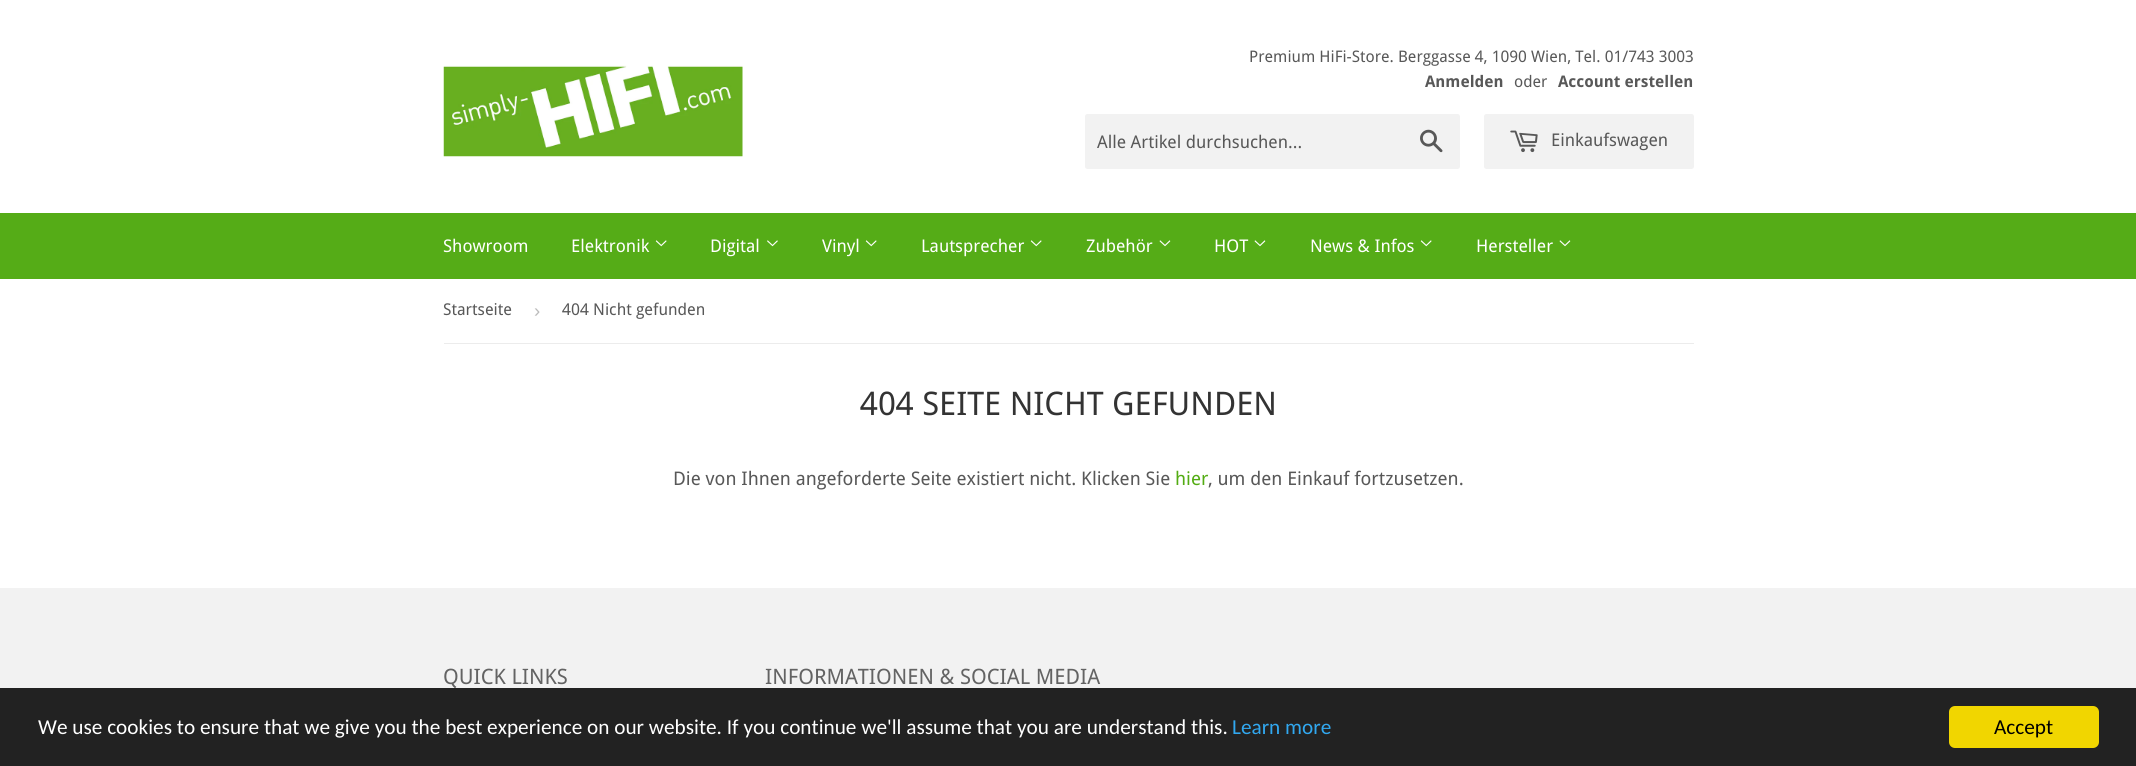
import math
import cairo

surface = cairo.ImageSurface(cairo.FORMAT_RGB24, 2136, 766)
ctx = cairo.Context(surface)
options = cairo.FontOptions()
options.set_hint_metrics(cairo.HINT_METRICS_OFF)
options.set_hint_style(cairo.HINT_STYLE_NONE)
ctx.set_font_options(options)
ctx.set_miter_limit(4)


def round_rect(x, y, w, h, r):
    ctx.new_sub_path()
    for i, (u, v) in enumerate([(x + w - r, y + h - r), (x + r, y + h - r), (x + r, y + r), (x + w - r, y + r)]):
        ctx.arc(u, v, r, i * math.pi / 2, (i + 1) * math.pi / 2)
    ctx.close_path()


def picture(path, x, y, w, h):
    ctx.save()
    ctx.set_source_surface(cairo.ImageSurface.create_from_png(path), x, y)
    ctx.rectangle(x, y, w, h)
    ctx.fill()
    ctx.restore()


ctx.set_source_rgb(1, 1, 1)
ctx.paint()
picture("img1.png", 443, 65, 300, 92)
ctx.select_font_face("Droid Sans")
ctx.set_font_size(15.95)
ctx.set_source_rgb(0.345, 0.345, 0.345)
ctx.move_to(1249, 62)
ctx.show_text("Premium HiFi-Store. Berggasse 4, 1090 Wien, Tel. 01/743 3003")
ctx.select_font_face("Droid Sans", cairo.FONT_SLANT_NORMAL, cairo.FONT_WEIGHT_BOLD)
ctx.move_to(1425, 87)
ctx.show_text("Anmelden")
ctx.select_font_face("Droid Sans")
ctx.move_to(1514, 87)
ctx.show_text("oder")
ctx.select_font_face("Droid Sans", cairo.FONT_SLANT_NORMAL, cairo.FONT_WEIGHT_BOLD)
ctx.move_to(1558, 87)
ctx.show_text("Account erstellen")
ctx.set_source_rgb(0.949, 0.949, 0.949)
round_rect(1085, 114, 375, 55, 2.5)
ctx.fill()
ctx.select_font_face("Droid Sans")
ctx.set_font_size(17.5)
ctx.set_source_rgb(0.345, 0.345, 0.345)
ctx.move_to(1097, 148)
ctx.show_text("Alle Artikel durchsuchen...")
picture("img2.png", 1420, 129, 23, 24)
ctx.set_source_rgb(0.949, 0.949, 0.949)
round_rect(1484, 114, 210, 55, 2.5)
ctx.fill()
picture("img3.png", 1510, 130, 28, 23)
ctx.set_source_rgb(0.345, 0.345, 0.345)
ctx.move_to(1551, 146)
ctx.show_text("Einkaufswagen")
ctx.set_source_rgb(0.333, 0.675, 0.09)
ctx.rectangle(0, 213, 2136, 66)
ctx.fill()
ctx.set_source_rgb(1, 1, 1)
ctx.move_to(443, 252)
ctx.show_text("Showroom")
ctx.move_to(571, 252)
ctx.show_text("Elektronik")
picture("img4.png", 655, 240, 12, 7)
ctx.move_to(710, 252)
ctx.show_text("Digital")
picture("img5.png", 767, 240, 11, 7)
ctx.move_to(822, 252)
ctx.show_text("Vinyl")
picture("img4.png", 865, 240, 12, 7)
ctx.move_to(921, 252)
ctx.show_text("Lautsprecher")
picture("img4.png", 1030, 240, 12, 7)
ctx.move_to(1086, 252)
ctx.show_text("Zubehör")
picture("img6.png", 1159, 240, 12, 7)
ctx.move_to(1214, 252)
ctx.show_text("HOT")
picture("img6.png", 1254, 240, 12, 7)
ctx.move_to(1310, 252)
ctx.show_text("News & Infos")
picture("img4.png", 1420, 240, 12, 7)
ctx.move_to(1476, 252)
ctx.show_text("Hersteller")
picture("img6.png", 1559, 240, 12, 7)
ctx.set_source_rgb(0.925, 0.925, 0.925)
ctx.rectangle(444, 343, 1250, 1)
ctx.fill()
ctx.set_font_size(16.25)
ctx.set_source_rgb(0.345, 0.345, 0.345)
ctx.move_to(443, 315)
ctx.show_text("Startseite")
ctx.select_font_face("Liberation Sans")
ctx.set_font_size(18.75)
ctx.set_source_rgb(0.733, 0.733, 0.733)
ctx.move_to(534, 317)
ctx.show_text("›")
ctx.select_font_face("Droid Sans")
ctx.set_font_size(16.25)
ctx.set_source_rgb(0.345, 0.345, 0.345)
ctx.move_to(562, 315)
ctx.show_text("404 Nicht gefunden")
ctx.set_font_size(32.5)
ctx.set_source_rgb(0.2, 0.2, 0.2)
ctx.move_to(860, 415)
ctx.show_text("404 SEITE NICHT GEFUNDEN")
ctx.set_font_size(18.75)
ctx.set_source_rgb(0.345, 0.345, 0.345)
ctx.move_to(673, 485)
ctx.show_text("Die von Ihnen angeforderte Seite existiert nicht. Klicken Sie")
ctx.set_source_rgb(0.325, 0.675, 0.078)
ctx.move_to(1175, 485)
ctx.show_text("hier")
ctx.set_source_rgb(0.345, 0.345, 0.345)
ctx.move_to(1208, 485)
ctx.show_text(", um den Einkauf fortzusetzen.")
ctx.set_source_rgb(0.949, 0.949, 0.949)
ctx.rectangle(0, 588, 2136, 100)
ctx.fill()
ctx.set_font_size(21.25)
ctx.set_source_rgb(0.388, 0.388, 0.388)
ctx.move_to(443, 684)
ctx.show_text("QUICK LINKS")
ctx.move_to(765, 684)
ctx.show_text("INFORMATIONEN & SOCIAL MEDIA")
ctx.set_source_rgb(0.133, 0.133, 0.133)
ctx.rectangle(0, 688, 2136, 78)
ctx.fill()
ctx.select_font_face("Carlito")
ctx.set_source_rgb(1, 1, 1)
ctx.move_to(38, 734)
ctx.show_text("We use cookies to ensure that we give you the best experience on our website. If you continue we'll assume that you are understand this.")
ctx.set_source_rgb(0.192, 0.659, 0.941)
ctx.move_to(1232, 734)
ctx.show_text("Learn more")
ctx.set_source_rgb(0.945, 0.839, 0)
round_rect(1949, 706, 150, 42, 6)
ctx.fill()
ctx.set_source_rgb(0, 0, 0)
ctx.move_to(1994, 734)
ctx.show_text("Accept")
surface.write_to_png("page.png")
